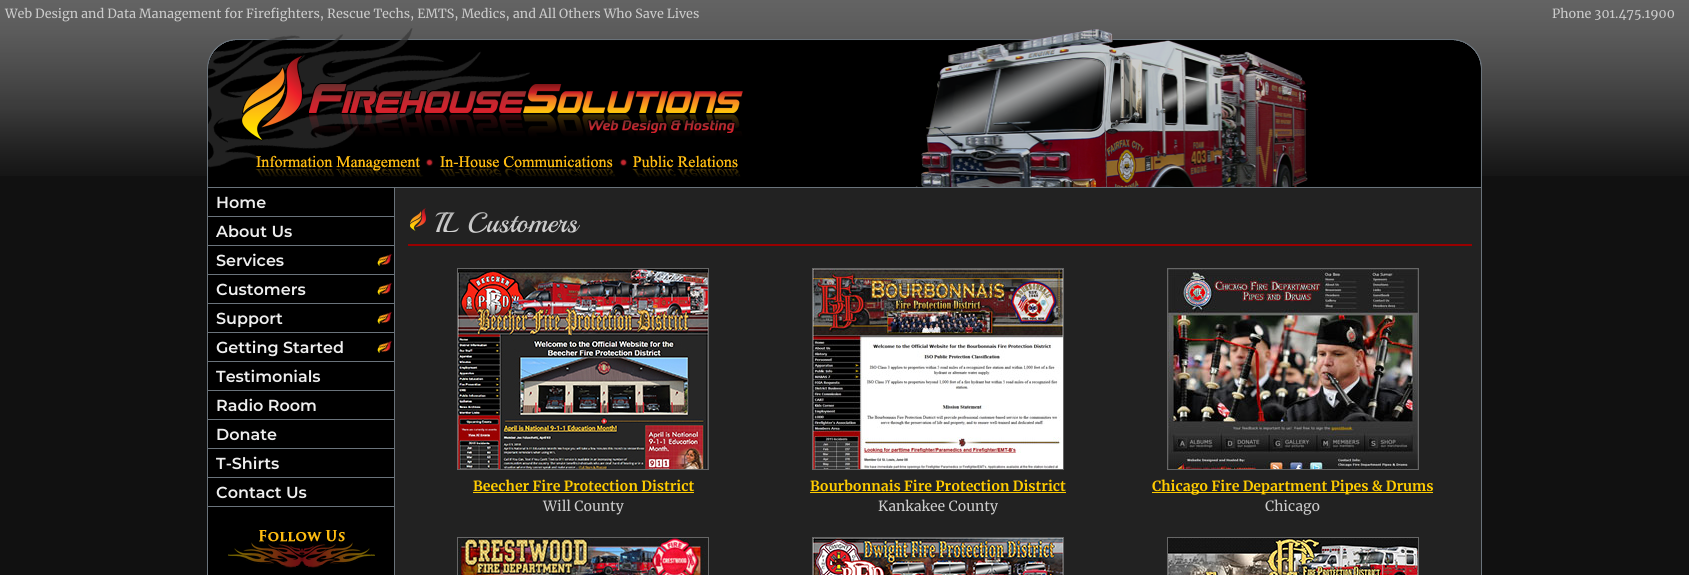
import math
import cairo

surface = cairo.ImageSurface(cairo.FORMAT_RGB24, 1689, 575)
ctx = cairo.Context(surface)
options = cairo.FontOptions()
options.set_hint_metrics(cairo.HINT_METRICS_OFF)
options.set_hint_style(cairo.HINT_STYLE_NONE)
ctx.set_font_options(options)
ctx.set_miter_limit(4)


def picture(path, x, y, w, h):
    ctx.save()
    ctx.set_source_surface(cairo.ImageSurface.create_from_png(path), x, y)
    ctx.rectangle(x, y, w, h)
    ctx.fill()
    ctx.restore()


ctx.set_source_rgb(0.067, 0.067, 0.067)
ctx.paint()
picture("img1.png", 0, 0, 1689, 176)
ctx.select_font_face("Merriweather")
ctx.set_font_size(12.6)
ctx.set_source_rgb(0.8, 0.8, 0.8)
ctx.move_to(5, 18)
ctx.show_text("Web Design and Data Management for Firefighters, Rescue Techs, EMTS, Medics, and All Others Who Save Lives")
ctx.move_to(1552, 18)
ctx.show_text("Phone 301.475.1900")
picture("img2.png", 207, 28, 538, 160)
picture("img3.png", 241, 56, 502, 121)
picture("img4.png", 745, 39, 737, 149)
picture("img5.png", 915, 29, 393, 158)
ctx.set_source_rgb(0.416, 0.451, 0.482)
ctx.rectangle(207, 188, 1, 387)
ctx.fill()
ctx.set_source_rgb(0, 0, 0)
ctx.rectangle(208, 188, 186, 387)
ctx.fill()
ctx.select_font_face("Montserrat SemiBold")
ctx.set_font_size(16)
ctx.set_source_rgb(0.933, 0.933, 0.933)
ctx.move_to(216, 208)
ctx.show_text("Home")
ctx.set_source_rgb(0.416, 0.451, 0.482)
ctx.rectangle(208, 216, 186, 1)
ctx.fill()
ctx.set_source_rgb(0.933, 0.933, 0.933)
ctx.move_to(216, 237)
ctx.show_text("About Us")
ctx.set_source_rgb(0.416, 0.451, 0.482)
ctx.rectangle(208, 245, 186, 1)
ctx.fill()
ctx.set_source_rgb(0.933, 0.933, 0.933)
ctx.move_to(216, 266)
ctx.show_text("Services")
picture("img6.png", 377, 253, 16, 13)
ctx.set_source_rgb(0.416, 0.451, 0.482)
ctx.rectangle(208, 274, 186, 1)
ctx.fill()
ctx.set_source_rgb(0.933, 0.933, 0.933)
ctx.move_to(216, 295)
ctx.show_text("Customers")
picture("img6.png", 377, 282, 16, 13)
ctx.set_source_rgb(0.416, 0.451, 0.482)
ctx.rectangle(208, 303, 186, 1)
ctx.fill()
ctx.set_source_rgb(0.933, 0.933, 0.933)
ctx.move_to(216, 324)
ctx.show_text("Support")
picture("img6.png", 377, 311, 16, 13)
ctx.set_source_rgb(0.416, 0.451, 0.482)
ctx.rectangle(208, 332, 186, 1)
ctx.fill()
ctx.set_source_rgb(0.933, 0.933, 0.933)
ctx.move_to(216, 353)
ctx.show_text("Getting Started")
picture("img6.png", 377, 340, 16, 13)
ctx.set_source_rgb(0.416, 0.451, 0.482)
ctx.rectangle(208, 361, 186, 1)
ctx.fill()
ctx.set_source_rgb(0.933, 0.933, 0.933)
ctx.move_to(216, 382)
ctx.show_text("Testimonials")
ctx.set_source_rgb(0.416, 0.451, 0.482)
ctx.rectangle(208, 390, 186, 1)
ctx.fill()
ctx.set_source_rgb(0.933, 0.933, 0.933)
ctx.move_to(216, 411)
ctx.show_text("Radio Room")
ctx.set_source_rgb(0.416, 0.451, 0.482)
ctx.rectangle(208, 419, 186, 1)
ctx.fill()
ctx.set_source_rgb(0.933, 0.933, 0.933)
ctx.move_to(216, 440)
ctx.show_text("Donate")
ctx.set_source_rgb(0.416, 0.451, 0.482)
ctx.rectangle(208, 448, 186, 1)
ctx.fill()
ctx.set_source_rgb(0.933, 0.933, 0.933)
ctx.move_to(216, 469)
ctx.show_text("T-Shirts")
ctx.set_source_rgb(0.416, 0.451, 0.482)
ctx.rectangle(208, 477, 186, 1)
ctx.fill()
ctx.set_source_rgb(0.933, 0.933, 0.933)
ctx.move_to(216, 498)
ctx.show_text("Contact Us")
ctx.set_source_rgb(0.416, 0.451, 0.482)
ctx.rectangle(208, 506, 186, 1)
ctx.fill()
picture("img7.png", 228, 530, 147, 38)
ctx.rectangle(394, 188, 1, 387)
ctx.fill()
ctx.set_source_rgb(0.133, 0.133, 0.133)
ctx.rectangle(395, 188, 1086, 387)
ctx.fill()
picture("img8.png", 410, 208, 16, 23)
ctx.select_font_face("Playball")
ctx.set_font_size(28)
gradient = cairo.LinearGradient(506, 205, 506, 240)
gradient.add_color_stop_rgba(0, 0.667, 0.667, 0.667, 1)
gradient.add_color_stop_rgba(1, 0.867, 0.867, 0.867, 1)
ctx.set_source(gradient)
ctx.move_to(435, 232)
ctx.show_text("IL Customers")
ctx.set_source_rgb(0.6, 0, 0)
ctx.rectangle(408, 244, 1064, 2)
ctx.fill()
ctx.rectangle(457.5, 268.5, 251, 201)
ctx.set_source_rgb(0.4, 0.4, 0.4)
ctx.set_line_width(1)
ctx.stroke()
picture("img9.png", 458, 269, 250, 200)
ctx.select_font_face("Merriweather", cairo.FONT_SLANT_NORMAL, cairo.FONT_WEIGHT_BOLD)
ctx.set_font_size(14)
ctx.set_source_rgb(1, 0.8, 0)
ctx.move_to(473, 491)
ctx.show_text("Beecher Fire Protection District")
ctx.rectangle(473, 492, 221, 1)
ctx.fill()
ctx.select_font_face("Merriweather")
ctx.set_source_rgb(0.8, 0.8, 0.8)
ctx.move_to(543, 511)
ctx.show_text("Will County")
ctx.rectangle(812.5, 268.5, 251, 201)
ctx.set_source_rgb(0.4, 0.4, 0.4)
ctx.stroke()
picture("img10.png", 813, 269, 250, 200)
ctx.select_font_face("Merriweather", cairo.FONT_SLANT_NORMAL, cairo.FONT_WEIGHT_BOLD)
ctx.set_source_rgb(1, 0.8, 0)
ctx.move_to(810, 491)
ctx.show_text("Bourbonnais Fire Protection District")
ctx.rectangle(810, 492, 256, 1)
ctx.fill()
ctx.select_font_face("Merriweather")
ctx.set_source_rgb(0.8, 0.8, 0.8)
ctx.move_to(878, 511)
ctx.show_text("Kankakee County")
ctx.rectangle(1167.5, 268.5, 251, 201)
ctx.set_source_rgb(0.4, 0.4, 0.4)
ctx.stroke()
picture("img11.png", 1168, 269, 250, 200)
ctx.set_source_rgb(1, 0.8, 0)
ctx.rectangle(1152, 492, 281, 1)
ctx.fill()
ctx.select_font_face("Merriweather", cairo.FONT_SLANT_NORMAL, cairo.FONT_WEIGHT_BOLD)
ctx.move_to(1152, 491)
ctx.show_text("Chicago Fire Department Pipes & Drums")
ctx.select_font_face("Merriweather")
ctx.set_source_rgb(0.8, 0.8, 0.8)
ctx.move_to(1265, 511)
ctx.show_text("Chicago")
ctx.rectangle(457.5, 537.5, 251, 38)
ctx.set_source_rgb(0.4, 0.4, 0.4)
ctx.stroke()
picture("img12.png", 458, 538, 250, 37)
ctx.rectangle(812.5, 537.5, 251, 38)
ctx.stroke()
picture("img13.png", 813, 538, 250, 37)
ctx.rectangle(1167.5, 537.5, 251, 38)
ctx.stroke()
picture("img14.png", 1168, 538, 250, 37)
ctx.set_source_rgb(0.416, 0.451, 0.482)
ctx.rectangle(1481, 188, 1, 387)
ctx.fill()
surface.write_to_png("page.png")
